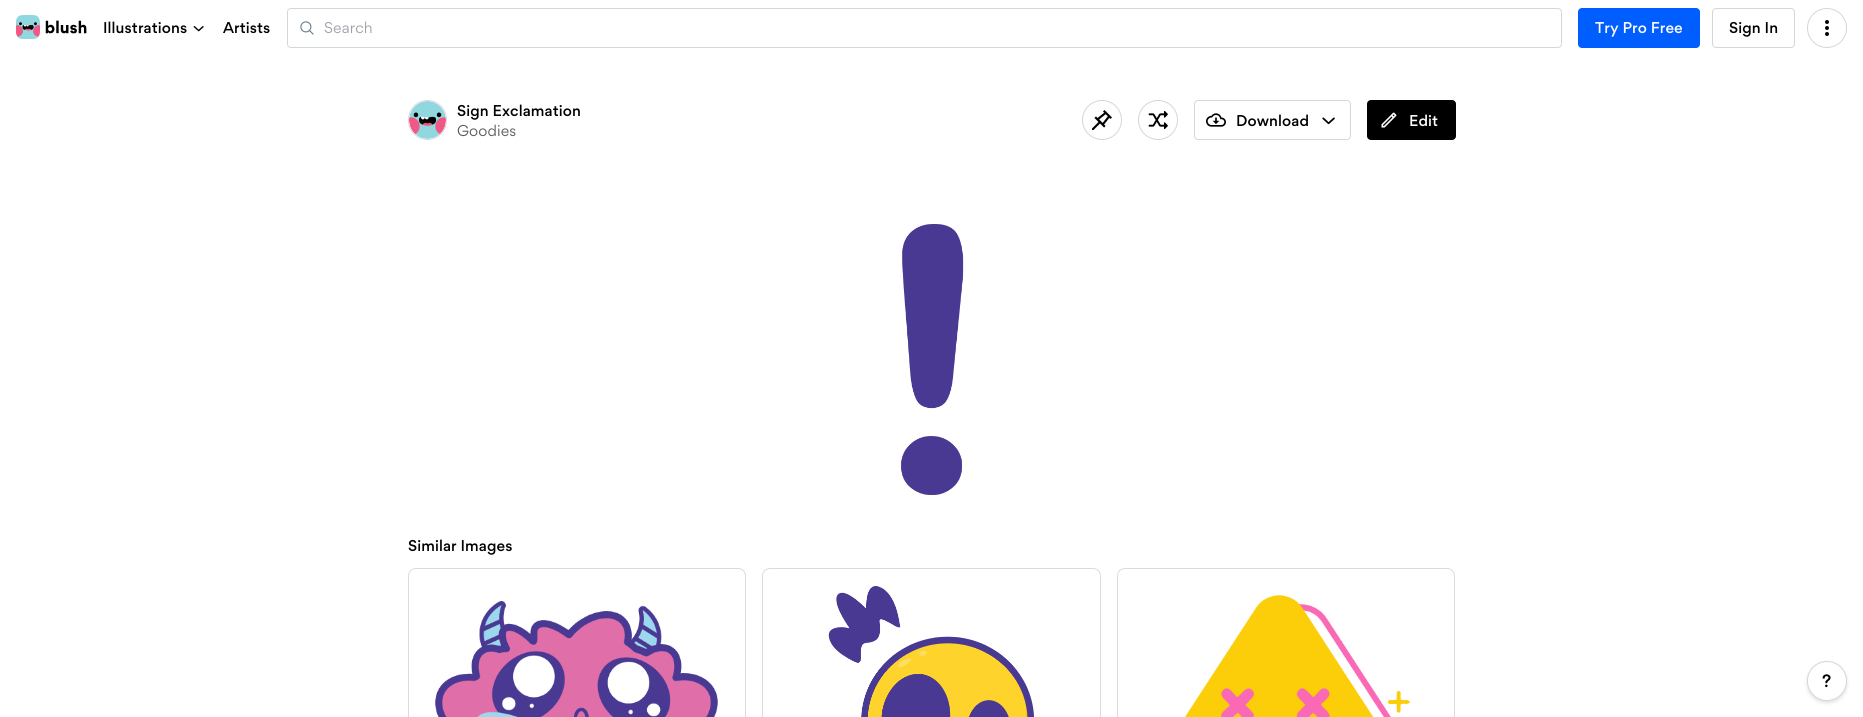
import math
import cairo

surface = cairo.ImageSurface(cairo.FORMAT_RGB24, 1863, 717)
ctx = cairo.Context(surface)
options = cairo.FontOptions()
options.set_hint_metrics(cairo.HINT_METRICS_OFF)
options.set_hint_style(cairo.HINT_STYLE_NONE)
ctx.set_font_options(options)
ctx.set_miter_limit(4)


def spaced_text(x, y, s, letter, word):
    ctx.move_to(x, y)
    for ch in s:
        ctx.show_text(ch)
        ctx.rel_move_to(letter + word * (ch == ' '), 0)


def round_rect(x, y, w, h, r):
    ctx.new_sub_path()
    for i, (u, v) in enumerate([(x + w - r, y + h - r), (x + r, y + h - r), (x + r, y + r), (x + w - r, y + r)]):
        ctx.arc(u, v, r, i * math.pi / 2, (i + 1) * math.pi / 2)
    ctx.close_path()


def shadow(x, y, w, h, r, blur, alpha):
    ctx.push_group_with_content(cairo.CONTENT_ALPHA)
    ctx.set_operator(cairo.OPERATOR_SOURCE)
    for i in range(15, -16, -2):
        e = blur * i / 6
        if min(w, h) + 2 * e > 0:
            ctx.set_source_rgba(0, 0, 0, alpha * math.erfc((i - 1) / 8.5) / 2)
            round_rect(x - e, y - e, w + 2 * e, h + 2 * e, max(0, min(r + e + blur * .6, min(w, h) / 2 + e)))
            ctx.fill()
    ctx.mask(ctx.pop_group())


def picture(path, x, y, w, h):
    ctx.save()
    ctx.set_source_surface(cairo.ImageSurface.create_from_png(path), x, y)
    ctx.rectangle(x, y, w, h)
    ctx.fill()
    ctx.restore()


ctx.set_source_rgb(1, 1, 1)
ctx.paint()
picture("img1.png", 16, 15, 71, 24)
ctx.select_font_face("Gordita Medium")
ctx.set_font_size(14)
ctx.set_source_rgb(0, 0, 0)
spaced_text(103, 33, "Illustrations", 0.1, 0)
picture("img2.png", 193, 26, 11, 6)
spaced_text(223, 33, "Artists", 0.1, 0)
round_rect(287.5, 8.5, 1274, 39, 3.5)
ctx.set_source_rgb(0.82, 0.847, 0.859)
ctx.set_line_width(1)
ctx.stroke()
picture("img3.png", 300, 21, 14, 14)
ctx.select_font_face("Gordita")
ctx.set_source_rgb(0.631, 0.631, 0.667)
spaced_text(324, 33, "Search", 0.1, 0)
ctx.set_source_rgb(0, 0.369, 1)
round_rect(1578.5, 8.5, 121, 39, 3.5)
ctx.fill_preserve()
ctx.stroke()
ctx.select_font_face("Gordita Medium")
ctx.set_source_rgb(1, 1, 1)
spaced_text(1595, 33, "Try Pro Free", 0.1, 0)
round_rect(1712.5, 8.5, 82, 39, 3.5)
ctx.set_source_rgb(0.82, 0.847, 0.859)
ctx.stroke()
ctx.set_source_rgb(0, 0, 0)
spaced_text(1729, 33, "Sign In", 0.1, 0)
ctx.new_path()
ctx.arc(1827, 28, 19.5, 0, 2 * math.pi)
ctx.set_source_rgb(0.82, 0.847, 0.859)
ctx.stroke()
picture("img4.png", 1825, 20, 4, 16)
round_rect(408.5, 100.5, 38, 39, 19)
ctx.set_source_rgb(0.859, 0.859, 0.859)
ctx.stroke()
picture("img5.png", 409, 101, 37, 38)
ctx.set_source_rgb(0, 0, 0)
spaced_text(457, 116, "Sign Exclamation", 0.1, 0)
ctx.select_font_face("Gordita")
ctx.set_source_rgb(0.357, 0.357, 0.357)
spaced_text(457, 136, "Goodies", 0.1, 0)
ctx.new_path()
ctx.arc(1102, 120, 19.5, 0, 2 * math.pi)
ctx.set_source_rgb(0.82, 0.847, 0.859)
ctx.stroke()
picture("img6.png", 1092, 110, 20, 20)
ctx.arc(1158, 120, 19.5, 0, 2 * math.pi)
ctx.stroke()
picture("img7.png", 1148, 110, 20, 20)
round_rect(1194.5, 100.5, 156, 39, 3.5)
ctx.stroke()
picture("img8.png", 1206, 113, 20, 14)
ctx.select_font_face("Gordita Medium")
ctx.set_source_rgb(0, 0, 0)
spaced_text(1236, 126, "Download", 0.1, 0)
picture("img9.png", 1322, 117, 13, 8)
round_rect(1367.5, 100.5, 88, 39, 3.5)
ctx.fill_preserve()
ctx.stroke()
picture("img10.png", 1381, 112, 16, 16)
ctx.set_source_rgb(1, 1, 1)
spaced_text(1409, 126, "Edit", 0.1, 0)
picture("img11.png", 900, 224, 64, 271)
ctx.set_source_rgb(0, 0, 0)
spaced_text(408, 551, "Similar Images", 0.1, 0)
round_rect(408.5, 568.5, 337, 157, 7.5)
ctx.set_source_rgb(0.859, 0.859, 0.859)
ctx.stroke()
picture("img12.png", 435, 601, 283, 116)
round_rect(762.5, 568.5, 338, 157, 7.5)
ctx.stroke()
picture("img13.png", 828, 586, 206, 131)
round_rect(1117.5, 568.5, 337, 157, 7.5)
ctx.stroke()
picture("img14.png", 1185, 595, 226, 122)
ctx.set_source_rgb(0, 0, 0)
shadow(1807, 663, 40, 40, 20, 2, 0.12)
ctx.set_source_rgb(1, 1, 1)
ctx.arc(1827, 681, 19.5, 0, 2 * math.pi)
ctx.fill_preserve()
ctx.set_source_rgb(0.82, 0.847, 0.859)
ctx.stroke()
ctx.set_font_size(16)
ctx.set_source_rgb(0, 0, 0)
ctx.move_to(1822, 687)
ctx.show_text("?")
surface.write_to_png("page.png")
